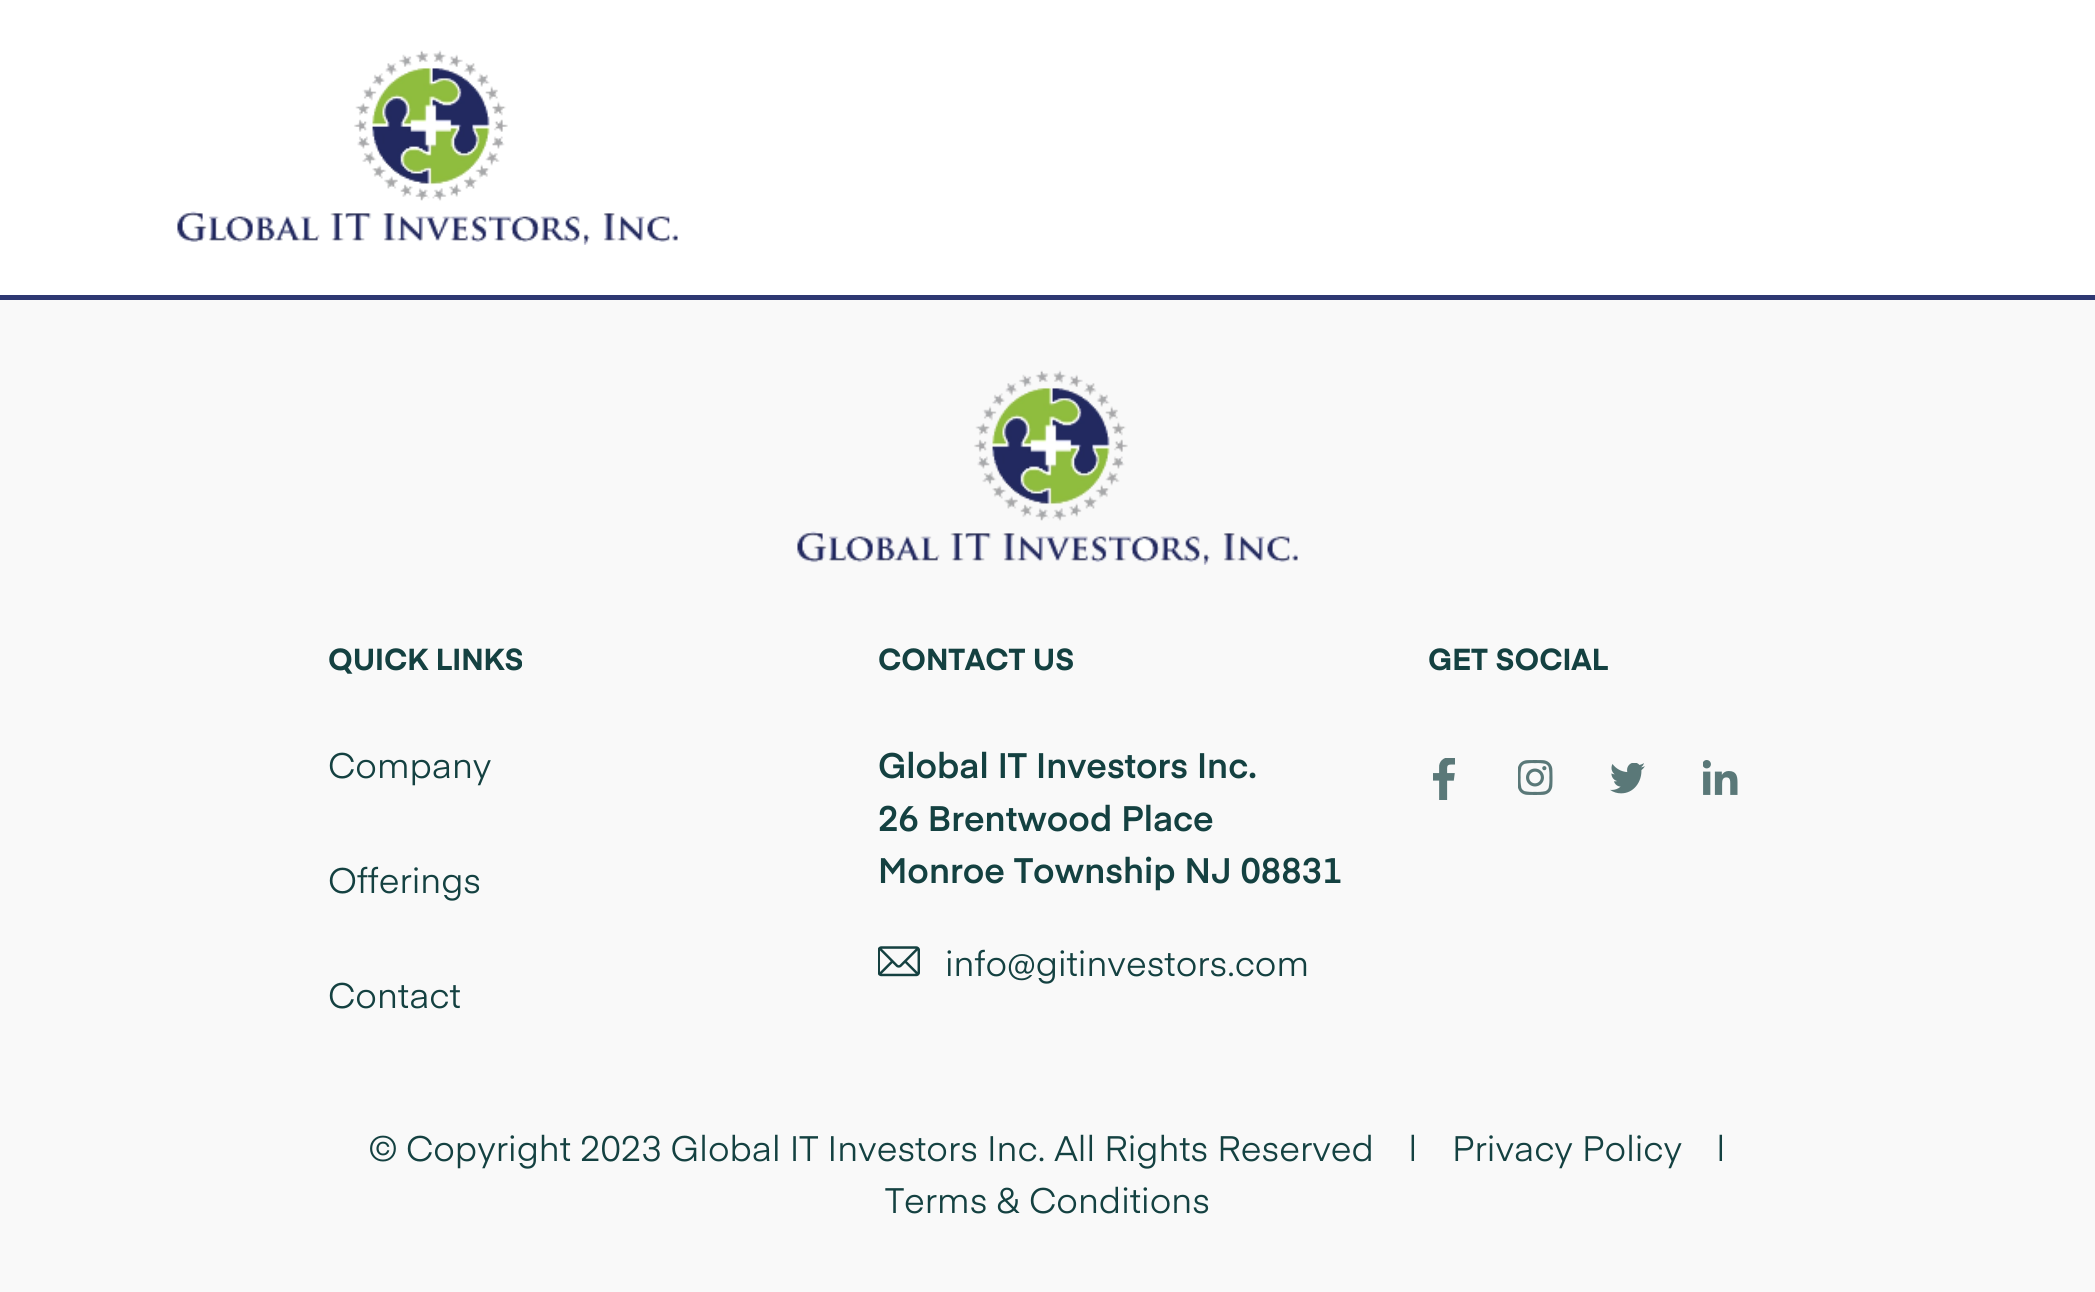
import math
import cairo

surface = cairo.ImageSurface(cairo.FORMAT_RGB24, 2095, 1292)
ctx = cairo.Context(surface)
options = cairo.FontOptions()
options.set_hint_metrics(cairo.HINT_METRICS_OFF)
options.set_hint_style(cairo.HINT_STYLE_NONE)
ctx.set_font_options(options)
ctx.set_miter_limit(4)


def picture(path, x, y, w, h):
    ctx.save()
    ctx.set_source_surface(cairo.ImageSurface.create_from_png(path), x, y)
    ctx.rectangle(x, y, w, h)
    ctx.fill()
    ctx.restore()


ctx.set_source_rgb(1, 1, 1)
ctx.paint()
picture("img1.png", 177, 50, 501, 195)
ctx.set_source_rgb(0.976, 0.976, 0.976)
ctx.rectangle(0, 300, 2095, 992)
ctx.fill()
ctx.set_source_rgb(0.18, 0.22, 0.447)
ctx.rectangle(0, 295, 2095, 5)
ctx.fill()
picture("img2.png", 797, 370, 501, 195)
ctx.select_font_face("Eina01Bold", cairo.FONT_SLANT_NORMAL, cairo.FONT_WEIGHT_BOLD)
ctx.set_font_size(30)
ctx.set_source_rgb(0.082, 0.255, 0.255)
ctx.move_to(328, 670)
ctx.show_text("QUICK LINKS")
ctx.select_font_face("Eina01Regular")
ctx.set_font_size(35)
ctx.move_to(328, 778)
ctx.show_text("Company")
ctx.move_to(328, 893)
ctx.show_text("Offerings")
ctx.move_to(328, 1008)
ctx.show_text("Contact")
ctx.select_font_face("Eina01Bold", cairo.FONT_SLANT_NORMAL, cairo.FONT_WEIGHT_BOLD)
ctx.set_font_size(30)
ctx.move_to(878, 670)
ctx.show_text("CONTACT US")
ctx.select_font_face("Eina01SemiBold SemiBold")
ctx.set_font_size(35)
ctx.move_to(878, 778)
ctx.show_text("Global IT Investors Inc.")
ctx.move_to(878, 831)
ctx.show_text("26 Brentwood Place")
ctx.move_to(878, 883)
ctx.show_text("Monroe Township NJ 08831")
picture("img3.png", 878, 946, 42, 31)
ctx.select_font_face("Eina01Regular")
ctx.move_to(945, 976)
ctx.show_text("info@gitinvestors.com")
ctx.select_font_face("Eina01Bold", cairo.FONT_SLANT_NORMAL, cairo.FONT_WEIGHT_BOLD)
ctx.set_font_size(30)
ctx.move_to(1428, 670)
ctx.show_text("GET SOCIAL")
picture("img4.png", 1433, 758, 22, 42)
picture("img5.png", 1518, 760, 35, 35)
picture("img6.png", 1610, 763, 35, 31)
picture("img7.png", 1703, 760, 35, 35)
ctx.select_font_face("Eina01Regular")
ctx.set_font_size(35)
ctx.move_to(369, 1161)
ctx.show_text("© Copyright 2023 Global IT Investors Inc. All Rights Reserved")
ctx.move_to(1408, 1161)
ctx.show_text("|")
ctx.move_to(1452, 1161)
ctx.show_text("Privacy Policy")
ctx.move_to(1716, 1161)
ctx.show_text("|")
ctx.move_to(885, 1213)
ctx.show_text("Terms & Conditions")
surface.write_to_png("page.png")
